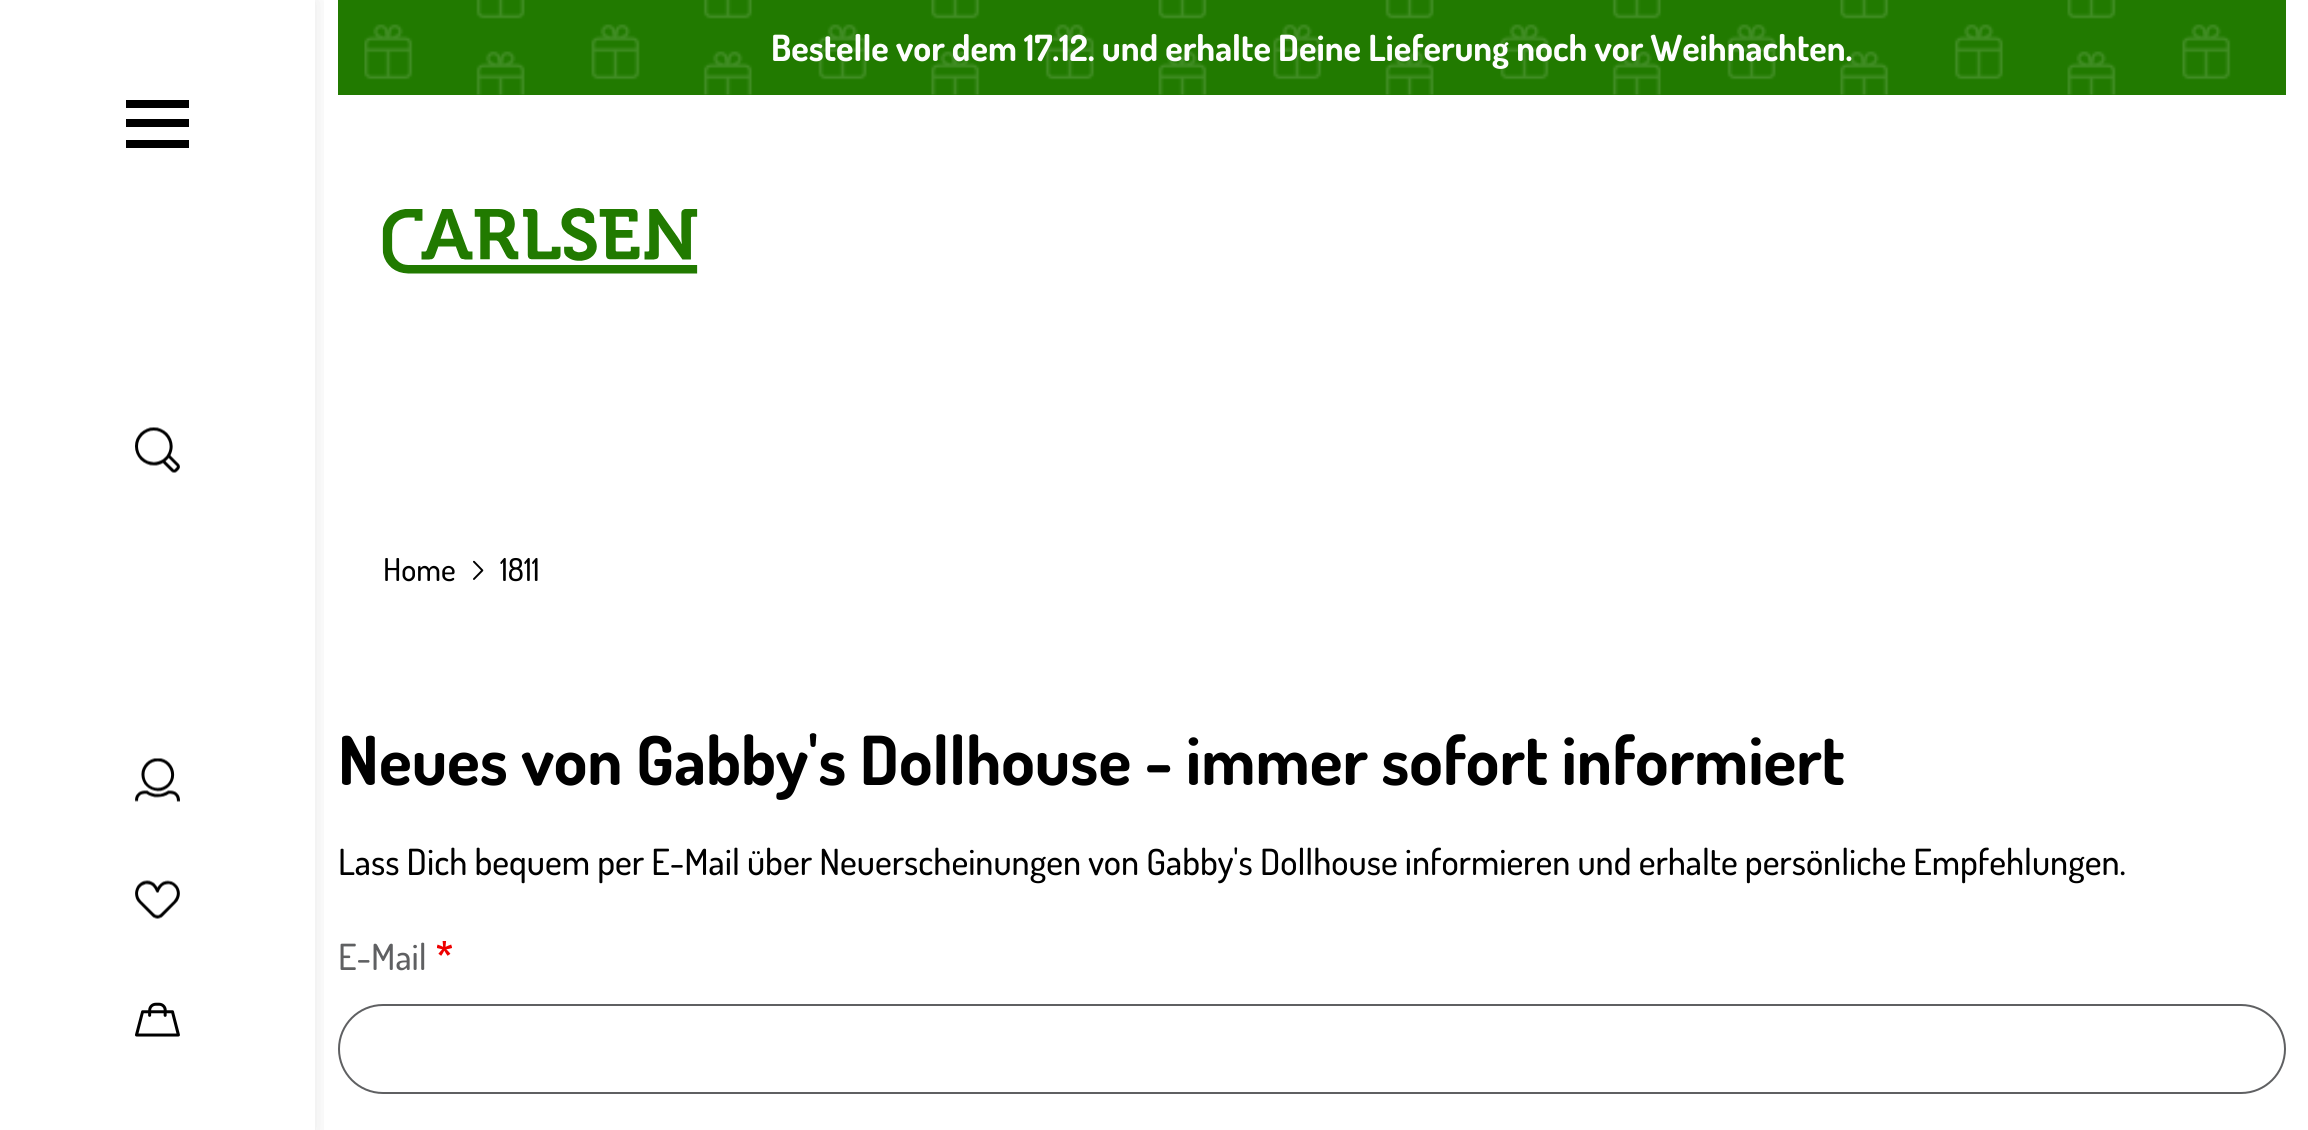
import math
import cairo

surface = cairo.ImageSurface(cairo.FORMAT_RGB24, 2308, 1130)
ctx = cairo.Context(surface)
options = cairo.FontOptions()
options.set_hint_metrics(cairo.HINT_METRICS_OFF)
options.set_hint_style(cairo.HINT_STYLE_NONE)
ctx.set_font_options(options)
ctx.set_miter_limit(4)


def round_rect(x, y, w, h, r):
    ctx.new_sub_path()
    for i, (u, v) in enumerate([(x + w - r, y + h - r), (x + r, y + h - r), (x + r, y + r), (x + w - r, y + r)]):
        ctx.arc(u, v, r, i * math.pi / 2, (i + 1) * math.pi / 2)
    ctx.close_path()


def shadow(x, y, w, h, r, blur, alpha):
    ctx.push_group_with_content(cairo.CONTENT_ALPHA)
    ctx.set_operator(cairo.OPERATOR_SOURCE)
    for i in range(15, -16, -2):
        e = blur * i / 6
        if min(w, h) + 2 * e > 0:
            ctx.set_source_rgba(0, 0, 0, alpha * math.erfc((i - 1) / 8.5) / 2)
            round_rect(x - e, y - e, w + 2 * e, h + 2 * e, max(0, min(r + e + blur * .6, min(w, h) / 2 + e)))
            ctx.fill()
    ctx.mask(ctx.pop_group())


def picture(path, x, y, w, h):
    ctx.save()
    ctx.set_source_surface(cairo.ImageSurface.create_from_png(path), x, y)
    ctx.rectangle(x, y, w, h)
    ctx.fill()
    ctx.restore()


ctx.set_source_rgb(1, 1, 1)
ctx.paint()
ctx.set_source_rgb(0.129, 0.478, 0)
ctx.rectangle(338, 0, 1948, 95)
ctx.fill()
round_rect(339, 1005, 1946, 88, 44)
ctx.set_source_rgb(0.373, 0.376, 0.384)
ctx.stroke()
ctx.save()
ctx.rectangle(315, 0, 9, 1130)
ctx.clip()
ctx.set_source_rgb(0, 0, 0)
shadow(0, 0, 315, 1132, 0, 11, 0.1)
ctx.restore()
ctx.set_source_rgb(0, 0, 0)
ctx.new_path()
ctx.move_to(189, 100)
ctx.line_to(189, 108)
ctx.line_to(126, 108)
ctx.line_to(126, 100)
ctx.close_path()
ctx.move_to(189, 119)
ctx.line_to(189, 127)
ctx.line_to(126, 127)
ctx.line_to(126, 119)
ctx.close_path()
ctx.move_to(189, 140)
ctx.line_to(189, 148)
ctx.line_to(126, 148)
ctx.line_to(126, 140)
ctx.close_path()
ctx.fill()
picture("img1.png", 135, 427, 45, 46)
picture("img2.png", 135, 758, 45, 44)
picture("img3.png", 135, 880, 45, 39)
picture("img4.png", 135, 1002, 45, 35)
picture("img5.png", 364, 0, 1867, 95)
ctx.select_font_face("Dosis", cairo.FONT_SLANT_NORMAL, cairo.FONT_WEIGHT_BOLD)
ctx.set_font_size(36)
ctx.set_source_rgb(0.996, 0.996, 0.996)
ctx.move_to(771, 61)
ctx.show_text("Bestelle vor dem 17.12. und erhalte Deine Lieferung noch vor Weihnachten.")
picture("img6.png", 382, 208, 316, 66)
ctx.select_font_face("Dosis Medium")
ctx.set_font_size(31.5)
ctx.set_source_rgb(0, 0, 0)
ctx.move_to(383, 581)
ctx.show_text("Home")
picture("img7.png", 473, 560, 11, 20)
ctx.move_to(500, 581)
ctx.show_text("1811")
ctx.select_font_face("Dosis", cairo.FONT_SLANT_NORMAL, cairo.FONT_WEIGHT_BOLD)
ctx.set_font_size(67.5)
ctx.move_to(338, 785)
ctx.show_text("Neues von Gabby's Dollhouse - immer sofort informiert")
ctx.select_font_face("Dosis Medium")
ctx.set_font_size(36)
ctx.move_to(338, 875)
ctx.show_text("Lass Dich bequem per E-Mail über Neuerscheinungen von Gabby's Dollhouse informieren und erhalte persönliche Empfehlungen.")
ctx.set_source_rgb(0.373, 0.376, 0.384)
ctx.move_to(338, 970)
ctx.show_text("E-Mail")
picture("img8.png", 437, 941, 15, 15)
surface.write_to_png("page.png")
